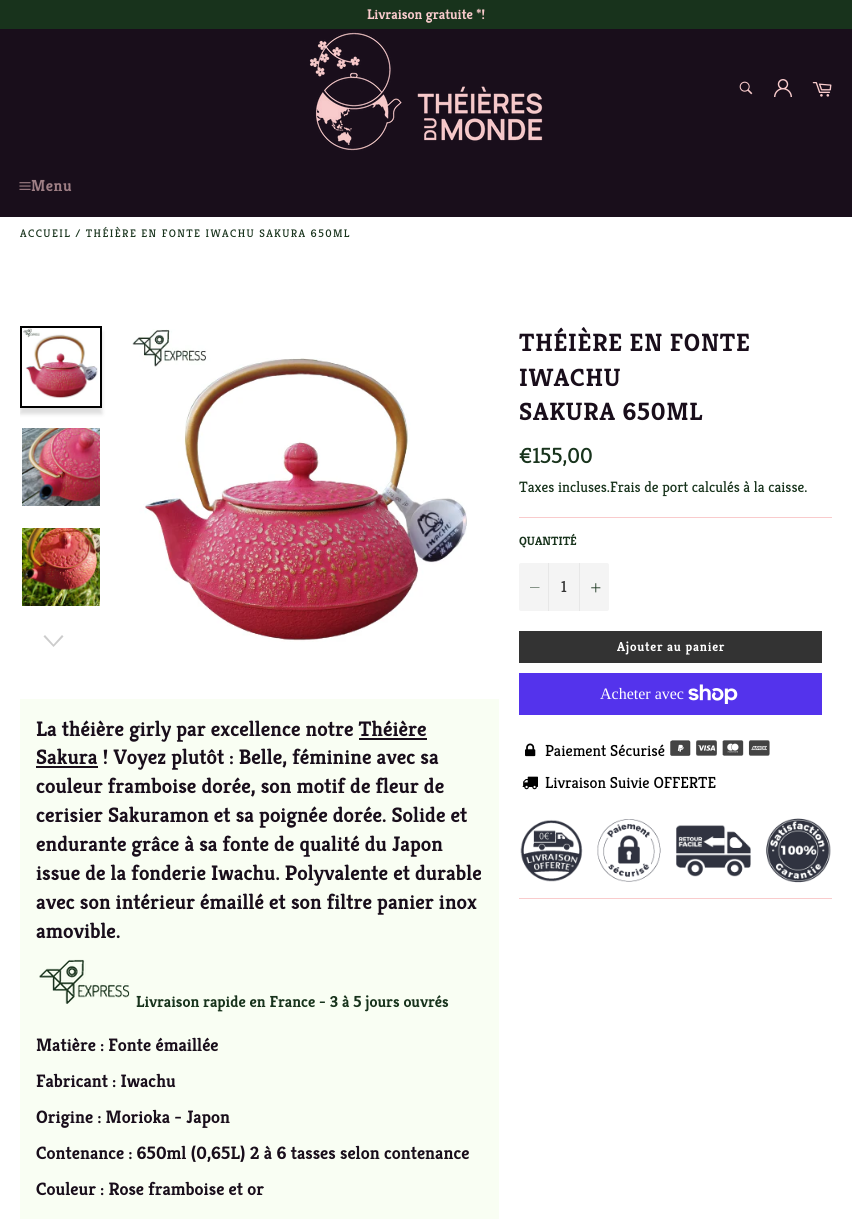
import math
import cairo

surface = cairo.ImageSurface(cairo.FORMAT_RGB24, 852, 1219)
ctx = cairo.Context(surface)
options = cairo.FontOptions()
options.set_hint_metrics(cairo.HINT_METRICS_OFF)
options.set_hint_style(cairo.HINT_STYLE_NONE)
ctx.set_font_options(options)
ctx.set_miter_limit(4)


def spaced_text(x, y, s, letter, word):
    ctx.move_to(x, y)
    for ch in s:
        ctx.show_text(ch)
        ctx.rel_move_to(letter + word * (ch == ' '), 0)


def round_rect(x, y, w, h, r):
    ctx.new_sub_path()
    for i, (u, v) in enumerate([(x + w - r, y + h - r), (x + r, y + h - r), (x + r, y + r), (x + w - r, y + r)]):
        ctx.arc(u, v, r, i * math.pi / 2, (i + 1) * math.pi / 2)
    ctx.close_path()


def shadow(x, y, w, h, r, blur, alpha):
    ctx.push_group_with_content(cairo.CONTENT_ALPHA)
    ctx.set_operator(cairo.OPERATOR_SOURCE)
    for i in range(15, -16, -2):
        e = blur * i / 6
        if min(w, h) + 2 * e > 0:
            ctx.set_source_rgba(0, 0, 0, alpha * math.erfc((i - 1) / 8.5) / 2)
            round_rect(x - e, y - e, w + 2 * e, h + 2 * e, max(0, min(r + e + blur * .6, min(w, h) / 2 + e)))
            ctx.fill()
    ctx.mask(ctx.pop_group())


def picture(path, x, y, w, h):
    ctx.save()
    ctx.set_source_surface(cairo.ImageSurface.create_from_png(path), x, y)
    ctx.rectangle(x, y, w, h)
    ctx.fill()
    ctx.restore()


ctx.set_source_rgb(1, 1, 1)
ctx.paint()
ctx.set_source_rgb(0.094, 0.2, 0.11)
ctx.rectangle(0, 0, 852, 29)
ctx.fill()
ctx.select_font_face("Kreon", cairo.FONT_SLANT_NORMAL, cairo.FONT_WEIGHT_BOLD)
ctx.set_font_size(14)
ctx.set_source_rgb(0.976, 0.796, 0.8)
ctx.move_to(367, 19)
ctx.show_text("Livraison gratuite *!")
ctx.set_source_rgb(0.098, 0.055, 0.106)
ctx.rectangle(0, 29, 852, 188)
ctx.fill()
picture("img1.png", 309, 32, 234, 119)
picture("img2.png", 739, 81, 14, 14)
picture("img3.png", 774, 79, 18, 18)
picture("img4.png", 812, 82, 20, 15)
picture("img5.png", 19, 182, 12, 8)
ctx.set_font_size(16)
ctx.set_source_rgb(0.624, 0.498, 0.522)
spaced_text(31, 191, "Menu", 0.5, 0)
ctx.select_font_face("Kreon")
ctx.set_font_size(11)
ctx.set_source_rgb(0.094, 0.2, 0.11)
spaced_text(20, 237, "ACCUEIL / THÉIÈRE EN FONTE IWACHU SAKURA 650ML", 1.4, 0)
ctx.select_font_face("Kreon", cairo.FONT_SLANT_NORMAL, cairo.FONT_WEIGHT_BOLD)
ctx.set_font_size(25)
ctx.set_source_rgb(0.098, 0.055, 0.106)
spaced_text(519, 351, "THÉIÈRE EN FONTE", 0.75, 0)
spaced_text(519, 386, "IWACHU", 0.75, 0)
spaced_text(519, 420, "SAKURA 650ML", 0.75, 0)
ctx.select_font_face("Kreon")
ctx.set_font_size(22)
ctx.set_source_rgb(0.094, 0.2, 0.11)
ctx.move_to(519, 463)
ctx.show_text("€155,00")
ctx.set_font_size(15)
ctx.move_to(519, 492)
ctx.show_text("Taxes incluses.Frais de port calculés à la caisse.")
ctx.set_source_rgb(0.976, 0.796, 0.8)
ctx.rectangle(519, 517, 313, 1)
ctx.fill()
ctx.select_font_face("Kreon", cairo.FONT_SLANT_NORMAL, cairo.FONT_WEIGHT_BOLD)
ctx.set_font_size(12)
ctx.set_source_rgb(0.094, 0.2, 0.11)
ctx.move_to(519, 545)
ctx.show_text("QUANTITÉ")
ctx.set_source_rgb(0.957, 0.957, 0.957)
round_rect(519, 563, 90, 48, 2)
ctx.fill()
ctx.set_source_rgb(0.906, 0.906, 0.906)
ctx.rectangle(548, 563, 1, 48)
ctx.fill()
ctx.set_source_rgb(0.094, 0.2, 0.11)
ctx.set_fill_rule(cairo.FILL_RULE_EVEN_ODD)
ctx.new_path()
ctx.move_to(539.5, 587.5)
ctx.line_to(539.5, 588)
ctx.line_to(530, 588)
ctx.line_to(530, 587.5)
ctx.close_path()
ctx.fill()
ctx.select_font_face("Kreon")
ctx.set_font_size(16)
ctx.set_source_rgb(0.2, 0.2, 0.2)
ctx.move_to(561, 592)
ctx.show_text("1")
ctx.set_source_rgb(0.906, 0.906, 0.906)
ctx.rectangle(579, 563, 1, 48)
ctx.fill()
picture("img6.png", 591, 583, 10, 10)
ctx.set_source_rgb(0.2, 0.2, 0.2)
ctx.rectangle(519, 631, 303, 32)
ctx.fill()
ctx.select_font_face("Kreon", cairo.FONT_SLANT_NORMAL, cairo.FONT_WEIGHT_BOLD)
ctx.set_font_size(13)
ctx.set_source_rgb(1, 1, 1)
spaced_text(617, 651, "Ajouter au panier", 0.75, 0)
ctx.set_source_rgb(0.329, 0.2, 0.922)
ctx.rectangle(519, 673, 303, 42)
ctx.fill()
ctx.select_font_face("Liberation Serif")
ctx.set_font_size(16)
ctx.set_source_rgb(1, 1, 1)
ctx.move_to(600, 699)
ctx.show_text("Acheter avec")
picture("img7.png", 688, 684, 50, 20)
picture("img8.png", 525, 743, 11, 14)
ctx.select_font_face("Kreon")
ctx.set_source_rgb(0, 0, 0)
ctx.move_to(545, 756)
ctx.show_text("Paiement Sécurisé")
picture("img9.png", 670, 740, 100, 16)
picture("img10.png", 522, 776, 16, 14)
ctx.move_to(545, 788)
ctx.show_text("Livraison Suivie OFFERTE")
picture("img11.png", 520, 818, 311, 65)
ctx.set_source_rgb(0.976, 0.796, 0.8)
ctx.rectangle(519, 898, 313, 1)
ctx.fill()
ctx.save()
ctx.set_fill_rule(cairo.FILL_RULE_WINDING)
ctx.rectangle(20, 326, 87, 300)
ctx.clip()
ctx.set_fill_rule(cairo.FILL_RULE_EVEN_ODD)
ctx.new_path()
ctx.move_to(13, 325)
ctx.line_to(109, 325)
ctx.line_to(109, 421)
ctx.line_to(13, 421)
ctx.close_path()
ctx.move_to(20, 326)
ctx.line_to(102, 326)
ctx.line_to(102, 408)
ctx.line_to(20, 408)
ctx.close_path()
ctx.clip()
ctx.set_source_rgb(0.78, 0.78, 0.78)
shadow(20, 332, 82, 82, 0, 2, 0.6)
ctx.restore()
ctx.rectangle(21, 327, 80, 80)
ctx.set_source_rgb(0, 0, 0)
ctx.stroke()
picture("img12.png", 23, 328, 75, 71)
picture("img13.png", 22, 428, 78, 78)
picture("img14.png", 22, 528, 78, 78)
ctx.set_source_rgb(0.8, 0.8, 0.8)
ctx.set_fill_rule(cairo.FILL_RULE_WINDING)
ctx.new_path()
ctx.move_to(62, 635)
ctx.line_to(63.5, 636.5)
ctx.line_to(53.5, 647)
ctx.line_to(43.5, 636.5)
ctx.line_to(45, 635)
ctx.line_to(53.5, 644.5)
ctx.close_path()
ctx.fill()
picture("img15.png", 132, 329, 335, 313)
ctx.set_source_rgb(0.976, 0.996, 0.953)
ctx.rectangle(20, 699, 479, 520)
ctx.fill()
ctx.select_font_face("Kreon", cairo.FONT_SLANT_NORMAL, cairo.FONT_WEIGHT_BOLD)
ctx.set_font_size(21)
ctx.set_source_rgb(0.098, 0.055, 0.106)
ctx.move_to(36, 736)
ctx.show_text("La théière girly par excellence notre Théière")
ctx.rectangle(359, 738, 68, 2)
ctx.fill()
ctx.rectangle(36, 766, 62, 2)
ctx.fill()
ctx.move_to(36, 764)
ctx.show_text("Sakura ! Voyez plutôt : Belle, féminine avec sa")
ctx.move_to(36, 793)
ctx.show_text("couleur framboise dorée, son motif de fleur de")
ctx.move_to(36, 822)
ctx.show_text("cerisier Sakuramon et sa poignée dorée. Solide et")
ctx.move_to(36, 851)
ctx.show_text("endurante grâce à sa fonte de qualité du Japon")
ctx.move_to(36, 880)
ctx.show_text("issue de la fonderie Iwachu. Polyvalente et durable")
ctx.move_to(36, 909)
ctx.show_text("avec son intérieur émaillé et son filtre panier inox")
ctx.move_to(36, 938)
ctx.show_text("amovible.")
picture("img16.png", 39, 959, 91, 45)
ctx.set_font_size(16)
ctx.set_source_rgb(0.094, 0.2, 0.11)
ctx.move_to(136, 1007)
ctx.show_text("Livraison rapide en France - 3 à 5 jours ouvrés")
ctx.set_font_size(18)
ctx.set_source_rgb(0.098, 0.055, 0.106)
ctx.move_to(36, 1051)
ctx.show_text("Matière : Fonte émaillée")
ctx.move_to(36, 1087)
ctx.show_text("Fabricant : Iwachu")
ctx.move_to(36, 1123)
ctx.show_text("Origine : Morioka - Japon")
ctx.move_to(36, 1159)
ctx.show_text("Contenance : 650ml (0,65L) 2 à 6 tasses selon contenance")
ctx.move_to(36, 1195)
ctx.show_text("Couleur : Rose framboise et or")
surface.write_to_png("page.png")
